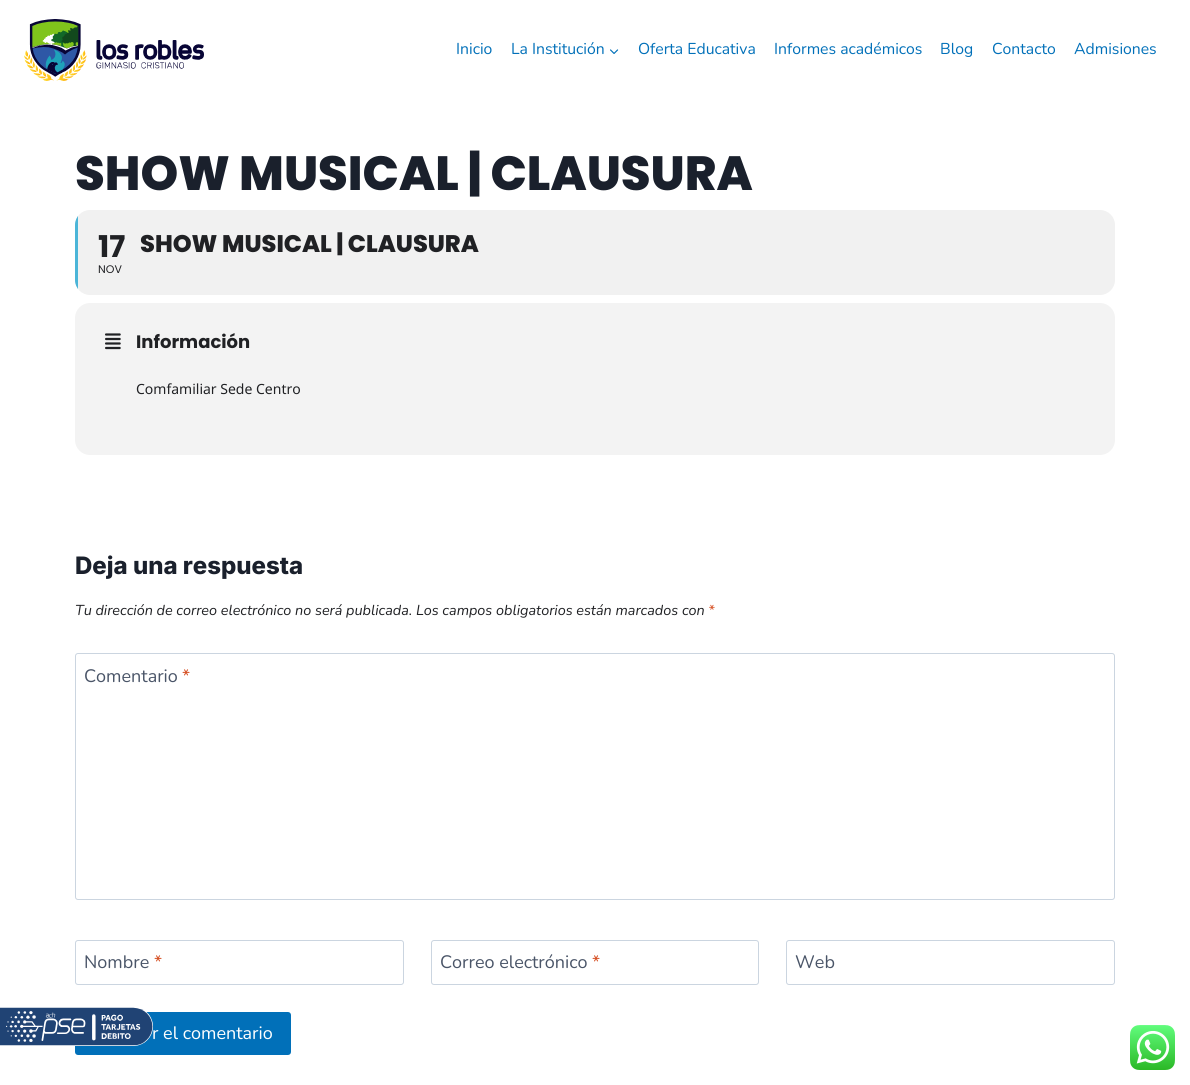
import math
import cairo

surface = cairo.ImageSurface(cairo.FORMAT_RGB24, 1190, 1085)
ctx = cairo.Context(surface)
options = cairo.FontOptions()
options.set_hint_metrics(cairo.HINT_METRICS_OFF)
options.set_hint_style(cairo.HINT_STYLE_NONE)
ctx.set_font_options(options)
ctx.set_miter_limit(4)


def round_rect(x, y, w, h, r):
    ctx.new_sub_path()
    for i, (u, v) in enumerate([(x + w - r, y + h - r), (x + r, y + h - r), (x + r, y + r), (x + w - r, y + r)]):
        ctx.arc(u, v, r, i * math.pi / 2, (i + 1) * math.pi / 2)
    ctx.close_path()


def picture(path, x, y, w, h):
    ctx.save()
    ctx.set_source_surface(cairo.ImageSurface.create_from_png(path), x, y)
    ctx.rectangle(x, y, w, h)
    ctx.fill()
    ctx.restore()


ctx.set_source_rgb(1, 1, 1)
ctx.paint()
picture("img1.png", 24, 19, 180, 62)
ctx.select_font_face("Nunito")
ctx.set_font_size(15.75)
ctx.set_source_rgb(0.004, 0.439, 0.725)
ctx.move_to(456, 54)
ctx.show_text("Inicio")
ctx.move_to(511, 54)
ctx.show_text("La Institución")
picture("img2.png", 610, 49, 9, 5)
ctx.move_to(638, 54)
ctx.show_text("Oferta Educativa")
ctx.move_to(774, 54)
ctx.show_text("Informes académicos")
ctx.move_to(940, 54)
ctx.show_text("Blog")
ctx.move_to(992, 54)
ctx.show_text("Contacto")
ctx.move_to(1074, 54)
ctx.show_text("Admisiones")
ctx.select_font_face("Poppins ExtraBold")
ctx.set_font_size(48)
ctx.set_source_rgb(0.102, 0.125, 0.173)
ctx.move_to(75, 190)
ctx.show_text("SHOW MUSICAL | CLAUSURA")
ctx.set_source_rgb(0.945, 0.945, 0.945)
round_rect(75, 210, 1040, 85, 15)
ctx.fill()
ctx.save()
round_rect(75, 210, 1040, 85, 15)
ctx.clip()
ctx.set_source_rgb(0.294, 0.71, 0.847)
ctx.rectangle(75, 210, 3, 85)
ctx.fill()
ctx.restore()
ctx.select_font_face("Poppins", cairo.FONT_SLANT_NORMAL, cairo.FONT_WEIGHT_BOLD)
ctx.set_font_size(30)
ctx.set_source_rgb(0.125, 0.129, 0.141)
ctx.move_to(98, 257)
ctx.show_text("17")
ctx.select_font_face("Poppins")
ctx.set_font_size(11)
ctx.move_to(98, 273)
ctx.show_text("NOV")
ctx.select_font_face("Poppins ExtraBold")
ctx.set_font_size(24)
ctx.move_to(140, 252)
ctx.show_text("SHOW MUSICAL | CLAUSURA")
ctx.set_source_rgb(0.953, 0.953, 0.953)
round_rect(75, 303, 1040, 152, 15)
ctx.fill()
picture("img3.png", 105, 333, 16, 17)
ctx.select_font_face("Poppins", cairo.FONT_SLANT_NORMAL, cairo.FONT_WEIGHT_BOLD)
ctx.set_font_size(18)
ctx.set_source_rgb(0.125, 0.129, 0.141)
ctx.move_to(136, 348)
ctx.show_text("Información")
ctx.select_font_face("Noto Sans")
ctx.set_font_size(14)
ctx.move_to(136, 394)
ctx.show_text("Comfamiliar Sede Centro")
ctx.select_font_face("Inter ExtraBold")
ctx.set_font_size(24)
ctx.set_source_rgb(0.102, 0.125, 0.173)
ctx.move_to(75, 574)
ctx.show_text("Deja una respuesta")
ctx.select_font_face("Nunito", cairo.FONT_SLANT_ITALIC)
ctx.set_font_size(14.4)
ctx.set_source_rgb(0.125, 0.129, 0.141)
ctx.move_to(75, 615)
ctx.show_text("Tu dirección de correo electrónico no será publicada. Los campos obligatorios están marcados con")
ctx.set_source_rgb(0.835, 0.306, 0.129)
ctx.move_to(708, 615)
ctx.show_text("*")
round_rect(75.5, 653.5, 1039, 246, 2.5)
ctx.set_source_rgb(0.796, 0.835, 0.878)
ctx.set_line_width(1)
ctx.stroke()
ctx.select_font_face("Nunito")
ctx.set_font_size(18)
ctx.set_source_rgb(0.29, 0.333, 0.408)
ctx.move_to(84, 682)
ctx.show_text("Comentario")
ctx.set_source_rgb(0.835, 0.306, 0.129)
ctx.move_to(182, 682)
ctx.show_text("*")
round_rect(75.5, 940.5, 328, 44, 2.5)
ctx.set_source_rgb(0.796, 0.835, 0.878)
ctx.stroke()
ctx.set_source_rgb(0.29, 0.333, 0.408)
ctx.move_to(84, 968)
ctx.show_text("Nombre")
ctx.set_source_rgb(0.835, 0.306, 0.129)
ctx.move_to(154, 968)
ctx.show_text("*")
round_rect(431.5, 940.5, 327, 44, 2.5)
ctx.set_source_rgb(0.796, 0.835, 0.878)
ctx.stroke()
ctx.set_source_rgb(0.29, 0.333, 0.408)
ctx.move_to(440, 968)
ctx.show_text("Correo electrónico")
ctx.set_source_rgb(0.835, 0.306, 0.129)
ctx.move_to(592, 968)
ctx.show_text("*")
round_rect(786.5, 940.5, 328, 44, 2.5)
ctx.set_source_rgb(0.796, 0.835, 0.878)
ctx.stroke()
ctx.set_source_rgb(0.29, 0.333, 0.408)
ctx.move_to(795, 968)
ctx.show_text("Web")
ctx.set_source_rgb(0.004, 0.439, 0.725)
round_rect(75, 1012, 216, 43, 3)
ctx.fill()
ctx.set_source_rgb(1, 1, 1)
ctx.move_to(152, 1039)
ctx.show_text("r el comentario")
picture("img4.png", 0, 1007, 153, 39)
picture("img5.png", 1130, 1025, 45, 45)
surface.write_to_png("page.png")
